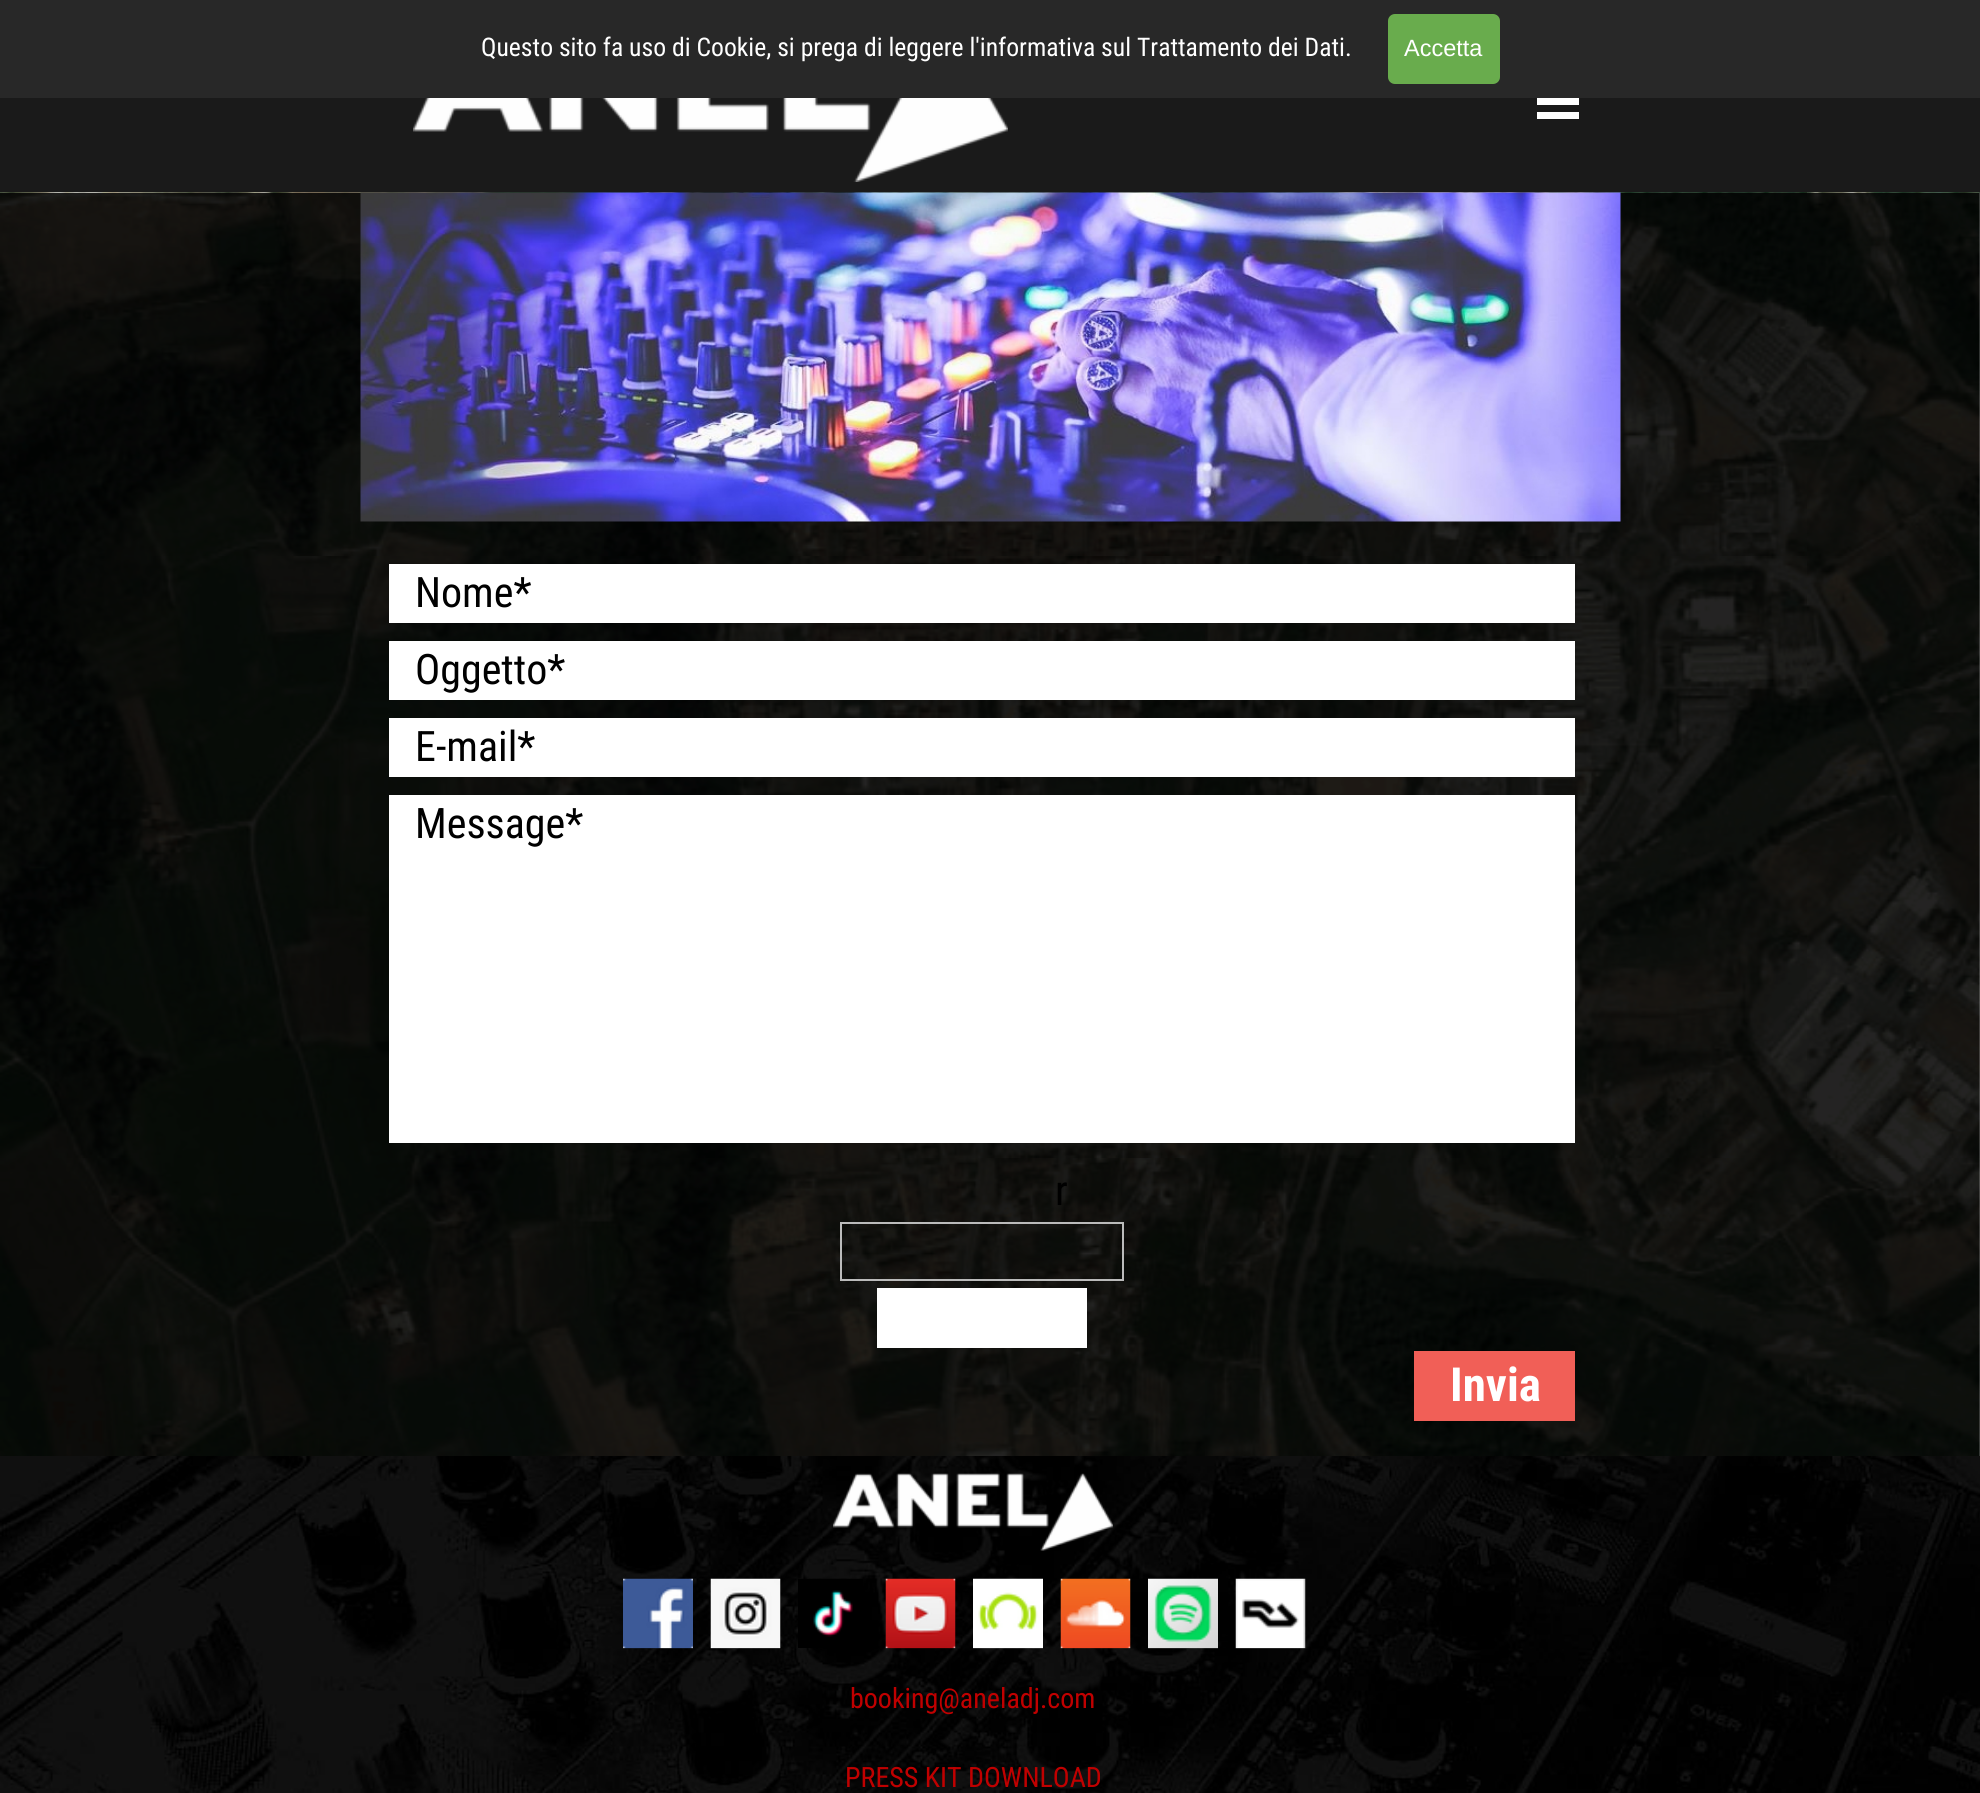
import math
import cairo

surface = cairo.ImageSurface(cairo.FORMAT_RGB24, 1980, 1793)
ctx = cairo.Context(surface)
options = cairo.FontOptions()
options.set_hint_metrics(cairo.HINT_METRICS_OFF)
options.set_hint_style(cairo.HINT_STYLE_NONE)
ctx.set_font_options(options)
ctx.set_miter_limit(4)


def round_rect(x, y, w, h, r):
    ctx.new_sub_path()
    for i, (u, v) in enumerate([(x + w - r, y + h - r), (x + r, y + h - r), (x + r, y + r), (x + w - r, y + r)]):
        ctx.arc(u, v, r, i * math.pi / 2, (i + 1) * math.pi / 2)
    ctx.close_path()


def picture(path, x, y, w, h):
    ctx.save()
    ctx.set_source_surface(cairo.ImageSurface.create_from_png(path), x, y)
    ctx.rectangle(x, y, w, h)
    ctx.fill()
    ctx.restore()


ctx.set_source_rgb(1, 1, 1)
ctx.paint()
ctx.set_source_rgb(0.157, 0.157, 0.157)
ctx.rectangle(0, 0, 1980, 98)
ctx.fill()
ctx.select_font_face("Roboto Condensed")
ctx.set_font_size(25.65)
ctx.set_source_rgb(1, 1, 1)
ctx.move_to(481, 56)
ctx.show_text("Questo sito fa uso di Cookie, si prega di leggere l'informativa sul Trattamento dei Dati.")
ctx.set_source_rgb(0.412, 0.675, 0.302)
round_rect(1388, 14, 112, 70, 7)
ctx.fill()
ctx.select_font_face("Liberation Sans")
ctx.set_font_size(23.5)
ctx.set_source_rgb(1, 1, 1)
ctx.move_to(1404, 56)
ctx.show_text("Accetta")
ctx.set_source_rgb(0.102, 0.102, 0.102)
ctx.rectangle(0, 98, 1980, 95)
ctx.fill()
picture("img1.png", 413, 98, 595, 84)
ctx.set_source_rgb(1, 1, 1)
ctx.rectangle(1537, 98, 42, 7)
ctx.fill()
ctx.rectangle(1537, 112, 42, 7)
ctx.fill()
picture("img2.png", 0, 192, 1980, 1264)
picture("img3.png", 360, 192, 1261, 330)
ctx.rectangle(389, 564, 1186, 59)
ctx.fill()
ctx.select_font_face("Roboto Condensed")
ctx.set_font_size(42)
ctx.set_source_rgb(0, 0, 0)
ctx.move_to(415, 607)
ctx.show_text("Nome*")
ctx.set_source_rgb(1, 1, 1)
ctx.rectangle(389, 641, 1186, 59)
ctx.fill()
ctx.set_source_rgb(0, 0, 0)
ctx.move_to(415, 684)
ctx.show_text("Oggetto*")
ctx.set_source_rgb(1, 1, 1)
ctx.rectangle(389, 718, 1186, 59)
ctx.fill()
ctx.set_source_rgb(0, 0, 0)
ctx.move_to(415, 761)
ctx.show_text("E-mail*")
ctx.set_source_rgb(1, 1, 1)
ctx.rectangle(389, 795, 1186, 348)
ctx.fill()
ctx.set_source_rgb(0, 0, 0)
ctx.move_to(415, 838)
ctx.show_text("Message*")
ctx.move_to(1055, 1205)
ctx.show_text("r")
ctx.rectangle(841, 1223, 282, 57)
ctx.set_source_rgb(0.733, 0.733, 0.733)
ctx.stroke()
ctx.set_source_rgb(1, 1, 1)
ctx.rectangle(877, 1288, 210, 60)
ctx.fill()
ctx.set_source_rgb(0.945, 0.373, 0.341)
ctx.rectangle(1414, 1351, 161, 70)
ctx.fill()
ctx.select_font_face("Roboto Condensed", cairo.FONT_SLANT_NORMAL, cairo.FONT_WEIGHT_BOLD)
ctx.set_font_size(47)
ctx.set_source_rgb(1, 1, 1)
ctx.move_to(1450, 1401)
ctx.show_text("Invia")
picture("img4.png", 0, 1456, 1980, 337)
picture("img5.png", 833, 1473, 280, 78)
picture("img6.png", 623, 1578, 70, 71)
picture("img7.png", 710, 1578, 71, 71)
picture("img8.png", 798, 1578, 65, 70)
picture("img9.png", 885, 1578, 71, 71)
picture("img10.png", 973, 1578, 70, 71)
picture("img11.png", 1060, 1578, 71, 71)
picture("img12.png", 1148, 1578, 70, 71)
picture("img13.png", 1235, 1578, 71, 71)
ctx.select_font_face("Roboto Condensed")
ctx.set_font_size(28)
ctx.set_source_rgb(0.753, 0, 0)
ctx.move_to(850, 1708)
ctx.show_text("booking@aneladj.com")
ctx.move_to(845, 1787)
ctx.show_text("PRESS KIT DOWNLOAD")
surface.write_to_png("page.png")
